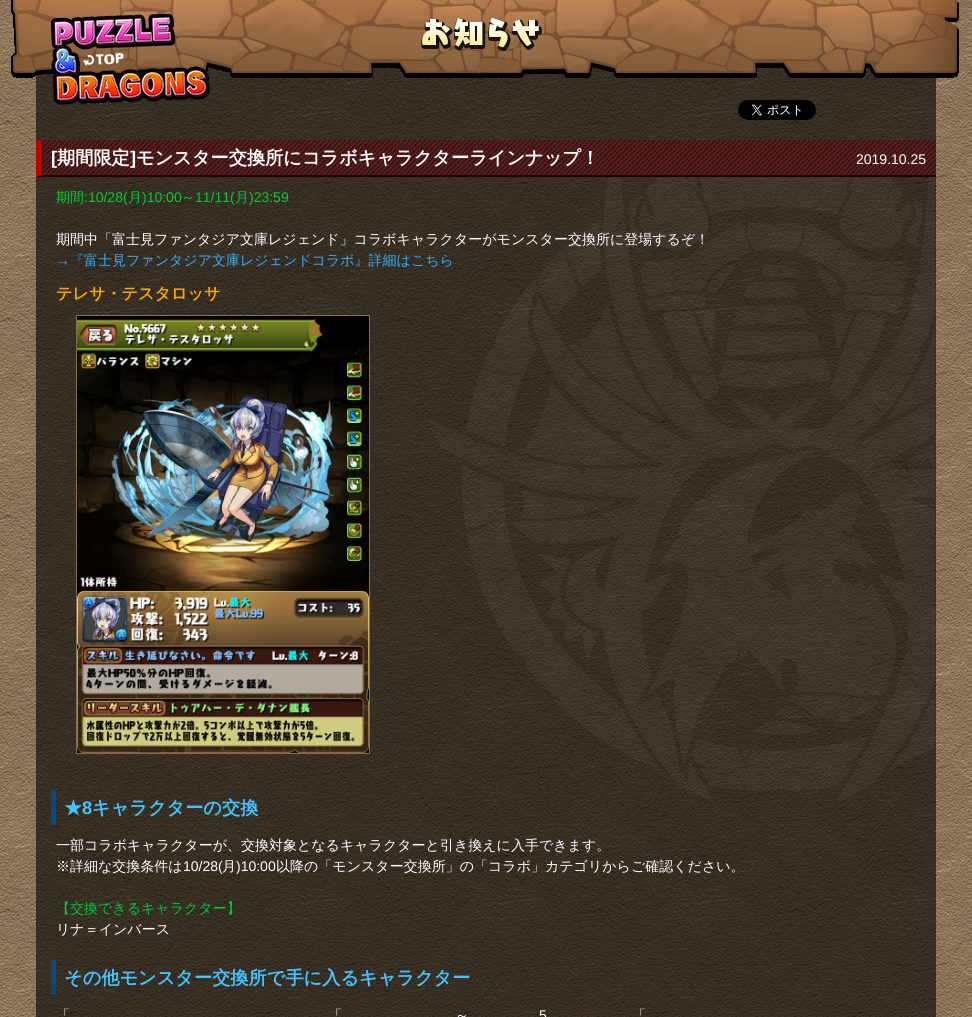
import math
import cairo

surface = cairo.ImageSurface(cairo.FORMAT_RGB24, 972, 1017)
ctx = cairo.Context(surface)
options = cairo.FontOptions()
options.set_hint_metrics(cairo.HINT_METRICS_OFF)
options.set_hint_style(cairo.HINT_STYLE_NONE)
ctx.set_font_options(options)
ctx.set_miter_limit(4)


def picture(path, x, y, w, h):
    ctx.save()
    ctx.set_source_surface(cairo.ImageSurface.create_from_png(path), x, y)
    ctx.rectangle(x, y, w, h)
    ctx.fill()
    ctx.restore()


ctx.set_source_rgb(1, 1, 1)
ctx.paint()
picture("img1.png", 0, 0, 972, 1017)
picture("img2.png", 11, 0, 948, 79)
picture("img3.png", 51, 14, 159, 91)
picture("img4.png", 738, 100, 78, 20)
picture("img5.png", 428, 177, 507, 624)
ctx.set_source_rgb(0.251, 0.055, 0.055)
ctx.rectangle(36, 140, 900, 37)
ctx.fill()
picture("img6.png", 36, 140, 900, 37)
ctx.set_source_rgb(0.149, 0, 0)
ctx.new_path()
ctx.move_to(936, 177)
ctx.line_to(36, 177)
ctx.line_to(41, 175)
ctx.line_to(936, 175)
ctx.close_path()
ctx.fill()
ctx.set_source_rgb(0.741, 0, 0)
ctx.new_path()
ctx.move_to(36, 177)
ctx.line_to(36, 140)
ctx.line_to(41, 140)
ctx.line_to(41, 175)
ctx.close_path()
ctx.fill()
ctx.select_font_face("Liberation Sans", cairo.FONT_SLANT_NORMAL, cairo.FONT_WEIGHT_BOLD)
ctx.set_font_size(18.2)
ctx.set_source_rgb(1, 1, 1)
ctx.move_to(51, 164)
ctx.show_text("[")
ctx.select_font_face("WenQuanYi Zen Hei", cairo.FONT_SLANT_NORMAL, cairo.FONT_WEIGHT_BOLD)
ctx.move_to(57, 164)
ctx.show_text("期間限定")
ctx.select_font_face("Liberation Sans", cairo.FONT_SLANT_NORMAL, cairo.FONT_WEIGHT_BOLD)
ctx.move_to(130, 164)
ctx.show_text("]")
ctx.select_font_face("WenQuanYi Zen Hei", cairo.FONT_SLANT_NORMAL, cairo.FONT_WEIGHT_BOLD)
ctx.move_to(136, 164)
ctx.show_text("モンスター交換所にコラボキャラクターラインナップ！")
ctx.select_font_face("Liberation Sans")
ctx.set_font_size(14)
ctx.move_to(856, 164)
ctx.show_text("2019.10.25")
ctx.select_font_face("WenQuanYi Zen Hei Medium")
ctx.set_source_rgb(0, 0.8, 0.2)
ctx.move_to(56, 202)
ctx.show_text("期間")
ctx.select_font_face("Liberation Sans")
ctx.move_to(84, 202)
ctx.show_text(":10/28(")
ctx.select_font_face("WenQuanYi Zen Hei Medium")
ctx.move_to(128, 202)
ctx.show_text("月")
ctx.select_font_face("Liberation Sans")
ctx.move_to(142, 202)
ctx.show_text(")10:00")
ctx.select_font_face("WenQuanYi Zen Hei Medium")
ctx.move_to(181, 202)
ctx.show_text("～")
ctx.select_font_face("Liberation Sans")
ctx.move_to(195, 202)
ctx.show_text("11/11(")
ctx.select_font_face("WenQuanYi Zen Hei Medium")
ctx.move_to(235, 202)
ctx.show_text("月")
ctx.select_font_face("Liberation Sans")
ctx.move_to(249, 202)
ctx.show_text(")23:59")
ctx.select_font_face("WenQuanYi Zen Hei Medium")
ctx.set_source_rgb(1, 1, 1)
ctx.move_to(56, 244)
ctx.show_text("期間中「富士見ファンタジア文庫レジェンド」コラボキャラクターがモンスター交換所に登場するぞ！")
ctx.select_font_face("Liberation Sans")
ctx.set_source_rgb(0.196, 0.69, 1)
ctx.move_to(56, 265)
ctx.show_text("→")
ctx.select_font_face("WenQuanYi Zen Hei Medium")
ctx.move_to(70, 265)
ctx.show_text("『富士見ファンタジア文庫レジェンドコラボ』詳細はこちら")
ctx.select_font_face("WenQuanYi Zen Hei", cairo.FONT_SLANT_NORMAL, cairo.FONT_WEIGHT_BOLD)
ctx.set_font_size(16.1)
ctx.set_source_rgb(1, 0.647, 0)
ctx.move_to(56, 299)
ctx.show_text("テレサ・テスタロッサ")
ctx.rectangle(76.5, 315.5, 293, 438)
ctx.set_source_rgb(0.522, 0.435, 0.298)
ctx.set_line_width(1)
ctx.stroke()
picture("img7.png", 77, 316, 292, 437)
ctx.set_source_rgb(0, 0.294, 0.518)
ctx.rectangle(51, 790, 5, 35)
ctx.fill()
ctx.set_font_size(18.2)
ctx.set_source_rgb(0.267, 0.769, 1)
ctx.move_to(64, 814)
ctx.show_text("★")
ctx.select_font_face("Liberation Sans", cairo.FONT_SLANT_NORMAL, cairo.FONT_WEIGHT_BOLD)
ctx.move_to(82, 814)
ctx.show_text("8")
ctx.select_font_face("WenQuanYi Zen Hei", cairo.FONT_SLANT_NORMAL, cairo.FONT_WEIGHT_BOLD)
ctx.move_to(92, 814)
ctx.show_text("キャラクターの交換")
ctx.select_font_face("WenQuanYi Zen Hei Medium")
ctx.set_font_size(14)
ctx.set_source_rgb(1, 1, 1)
ctx.move_to(56, 850)
ctx.show_text("一部コラボキャラクターが、交換対象となるキャラクターと引き換えに入手できます。")
ctx.move_to(56, 871)
ctx.show_text("※詳細な交換条件は")
ctx.select_font_face("Liberation Sans")
ctx.move_to(183, 871)
ctx.show_text("10/28(")
ctx.select_font_face("WenQuanYi Zen Hei Medium")
ctx.move_to(222, 871)
ctx.show_text("月")
ctx.select_font_face("Liberation Sans")
ctx.move_to(236, 871)
ctx.show_text(")10:00")
ctx.select_font_face("WenQuanYi Zen Hei Medium")
ctx.move_to(276, 871)
ctx.show_text("以降の「モンスター交換所」の「コラボ」カテゴリからご確認ください。")
ctx.set_source_rgb(0, 0.8, 0.2)
ctx.move_to(56, 913)
ctx.show_text("【交換できるキャラクター】")
ctx.set_source_rgb(1, 1, 1)
ctx.move_to(56, 934)
ctx.show_text("リナ＝インバース")
ctx.set_source_rgb(0, 0.294, 0.518)
ctx.rectangle(51, 960, 5, 35)
ctx.fill()
ctx.select_font_face("WenQuanYi Zen Hei", cairo.FONT_SLANT_NORMAL, cairo.FONT_WEIGHT_BOLD)
ctx.set_font_size(18.2)
ctx.set_source_rgb(0.267, 0.769, 1)
ctx.move_to(64, 984)
ctx.show_text("その他モンスター交換所で手に入るキャラクター")
ctx.select_font_face("WenQuanYi Zen Hei Medium")
ctx.set_font_size(14)
ctx.set_source_rgb(1, 1, 1)
ctx.move_to(56, 1020)
ctx.show_text("「")
ctx.move_to(328, 1020)
ctx.show_text("「")
ctx.move_to(455, 1020)
ctx.show_text("～")
ctx.select_font_face("Liberation Sans")
ctx.move_to(539, 1020)
ctx.show_text("5")
ctx.select_font_face("WenQuanYi Zen Hei Medium")
ctx.move_to(632, 1020)
ctx.show_text("「")
surface.write_to_png("page.png")
